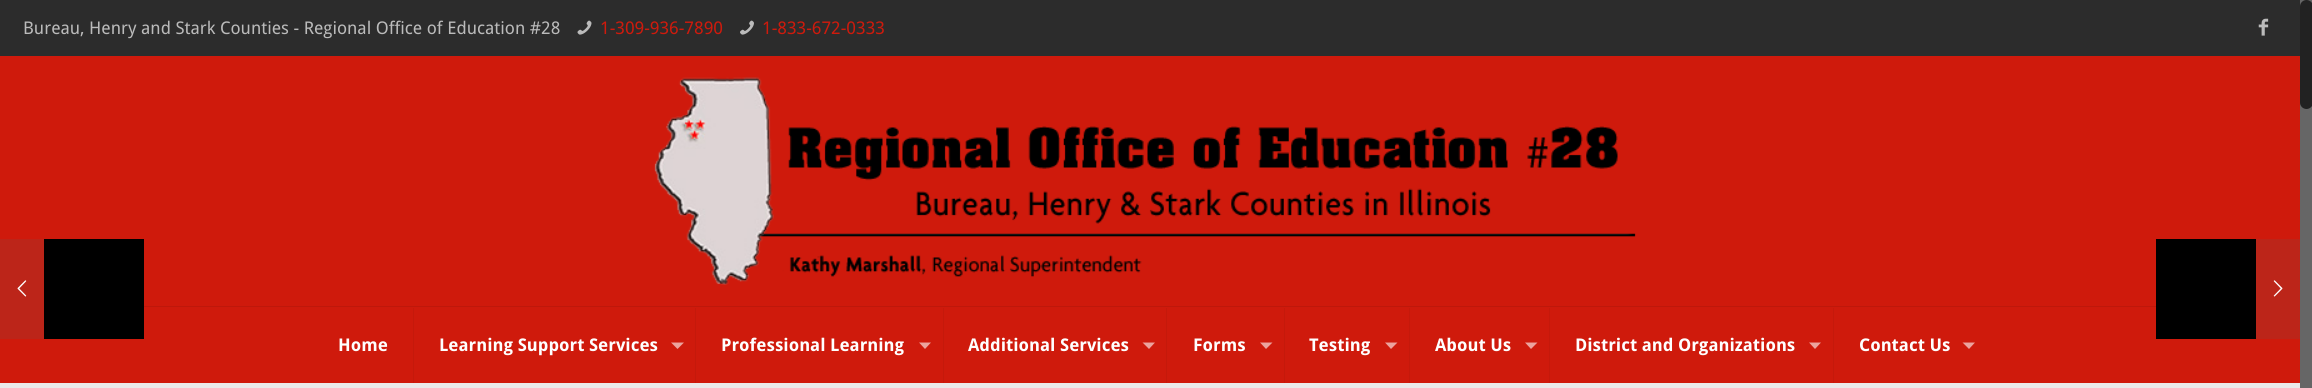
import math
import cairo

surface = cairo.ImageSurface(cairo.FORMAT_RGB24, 2312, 388)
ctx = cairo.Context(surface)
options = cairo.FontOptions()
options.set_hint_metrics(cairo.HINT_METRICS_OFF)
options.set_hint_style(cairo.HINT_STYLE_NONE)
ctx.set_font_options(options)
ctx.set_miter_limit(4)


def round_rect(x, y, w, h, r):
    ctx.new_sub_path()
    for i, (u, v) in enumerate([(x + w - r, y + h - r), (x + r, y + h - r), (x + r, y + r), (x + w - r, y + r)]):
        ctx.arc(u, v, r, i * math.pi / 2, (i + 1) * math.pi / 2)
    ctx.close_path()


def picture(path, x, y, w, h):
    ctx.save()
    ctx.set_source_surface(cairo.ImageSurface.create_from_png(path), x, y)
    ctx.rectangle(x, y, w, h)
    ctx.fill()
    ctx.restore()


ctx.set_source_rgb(0.173, 0.173, 0.173)
ctx.paint()
ctx.select_font_face("Droid Sans")
ctx.set_font_size(17.5)
ctx.set_source_rgb(0.733, 0.733, 0.733)
ctx.move_to(23, 34)
ctx.show_text("Bureau, Henry and Stark Counties - Regional Office of Education #28")
picture("img1.png", 577, 20, 15, 15)
ctx.set_source_rgb(0.812, 0.102, 0.047)
ctx.move_to(600, 34)
ctx.show_text("1-309-936-7890")
picture("img2.png", 740, 20, 14, 15)
ctx.move_to(762, 34)
ctx.show_text("1-833-672-0333")
picture("img3.png", 2258, 18, 11, 18)
ctx.rectangle(0, 56, 2300, 327)
ctx.fill()
ctx.set_source_rgb(0.745, 0.094, 0.043)
ctx.rectangle(144, 306, 2012, 1)
ctx.fill()
picture("img4.png", 654, 77, 982, 208)
ctx.set_source_rgb(0.773, 0.098, 0.043)
ctx.rectangle(413, 308, 1, 75)
ctx.fill()
ctx.select_font_face("Droid Sans", cairo.FONT_SLANT_NORMAL, cairo.FONT_WEIGHT_BOLD)
ctx.set_source_rgb(1, 1, 1)
ctx.move_to(338, 351)
ctx.show_text("Home")
ctx.set_source_rgb(0.773, 0.098, 0.043)
ctx.rectangle(695, 308, 1, 75)
ctx.fill()
ctx.set_source_rgb(1, 1, 1)
ctx.move_to(439, 351)
ctx.show_text("Learning Support Services")
ctx.set_source_rgb(0.925, 0.639, 0.62)
ctx.new_path()
ctx.move_to(671, 342.5)
ctx.line_to(684, 342.5)
ctx.line_to(677.5, 349)
ctx.close_path()
ctx.fill()
ctx.set_source_rgb(0.773, 0.098, 0.043)
ctx.rectangle(943, 308, 1, 75)
ctx.fill()
ctx.set_source_rgb(1, 1, 1)
ctx.move_to(721, 351)
ctx.show_text("Professional Learning")
ctx.set_source_rgb(0.925, 0.639, 0.62)
ctx.new_path()
ctx.move_to(919, 342.5)
ctx.line_to(931, 342.5)
ctx.line_to(925, 349)
ctx.close_path()
ctx.fill()
ctx.set_source_rgb(0.773, 0.098, 0.043)
ctx.rectangle(1166, 308, 1, 75)
ctx.fill()
ctx.set_source_rgb(1, 1, 1)
ctx.move_to(968, 351)
ctx.show_text("Additional Services")
ctx.set_source_rgb(0.925, 0.639, 0.62)
ctx.new_path()
ctx.move_to(1142.5, 342.5)
ctx.line_to(1155, 342.5)
ctx.line_to(1149, 349)
ctx.close_path()
ctx.fill()
ctx.set_source_rgb(0.773, 0.098, 0.043)
ctx.rectangle(1284, 308, 1, 75)
ctx.fill()
ctx.set_source_rgb(1, 1, 1)
ctx.move_to(1193, 351)
ctx.show_text("Forms")
ctx.set_source_rgb(0.925, 0.639, 0.62)
ctx.new_path()
ctx.move_to(1260, 342.5)
ctx.line_to(1272.5, 342.5)
ctx.line_to(1266, 349)
ctx.close_path()
ctx.fill()
ctx.set_source_rgb(0.773, 0.098, 0.043)
ctx.rectangle(1409, 308, 1, 75)
ctx.fill()
ctx.set_source_rgb(1, 1, 1)
ctx.move_to(1309, 351)
ctx.show_text("Testing")
ctx.set_source_rgb(0.925, 0.639, 0.62)
ctx.new_path()
ctx.move_to(1385, 342.5)
ctx.line_to(1397.5, 342.5)
ctx.line_to(1391, 349)
ctx.close_path()
ctx.fill()
ctx.set_source_rgb(0.773, 0.098, 0.043)
ctx.rectangle(1549, 308, 1, 75)
ctx.fill()
ctx.set_source_rgb(1, 1, 1)
ctx.move_to(1435, 351)
ctx.show_text("About Us")
ctx.set_source_rgb(0.925, 0.639, 0.62)
ctx.new_path()
ctx.move_to(1525, 342.5)
ctx.line_to(1537.5, 342.5)
ctx.line_to(1531, 349)
ctx.close_path()
ctx.fill()
ctx.set_source_rgb(0.773, 0.098, 0.043)
ctx.rectangle(1833, 308, 1, 75)
ctx.fill()
ctx.set_source_rgb(1, 1, 1)
ctx.move_to(1575, 351)
ctx.show_text("District and Organizations")
ctx.set_source_rgb(0.925, 0.639, 0.62)
ctx.new_path()
ctx.move_to(1809, 342.5)
ctx.line_to(1821, 342.5)
ctx.line_to(1815, 349)
ctx.close_path()
ctx.fill()
ctx.set_source_rgb(1, 1, 1)
ctx.move_to(1859, 351)
ctx.show_text("Contact Us")
ctx.set_source_rgb(0.925, 0.639, 0.62)
ctx.new_path()
ctx.move_to(1962.5, 342.5)
ctx.line_to(1975, 342.5)
ctx.line_to(1969, 349)
ctx.close_path()
ctx.fill()
ctx.set_source_rgb(0.918, 0.918, 0.918)
ctx.rectangle(0, 383, 2300, 5)
ctx.fill()
ctx.set_source_rgb(0.4, 0.4, 0.4)
ctx.rectangle(2300, 0, 12, 388)
ctx.fill()
ctx.set_source_rgb(0.133, 0.133, 0.133)
round_rect(2300, 0, 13, 109, 6.5)
ctx.fill()
ctx.set_source_rgb(0.737, 0.145, 0.098)
ctx.rectangle(0, 239, 44, 100)
ctx.fill()
picture("img5.png", 17, 280, 10, 17)
ctx.set_source_rgb(0, 0, 0)
ctx.rectangle(44, 239, 100, 100)
ctx.fill()
ctx.rectangle(2156, 239, 100, 100)
ctx.fill()
ctx.set_source_rgb(0.737, 0.145, 0.098)
ctx.rectangle(2256, 239, 44, 100)
ctx.fill()
picture("img6.png", 2273, 280, 10, 17)
surface.write_to_png("page.png")
